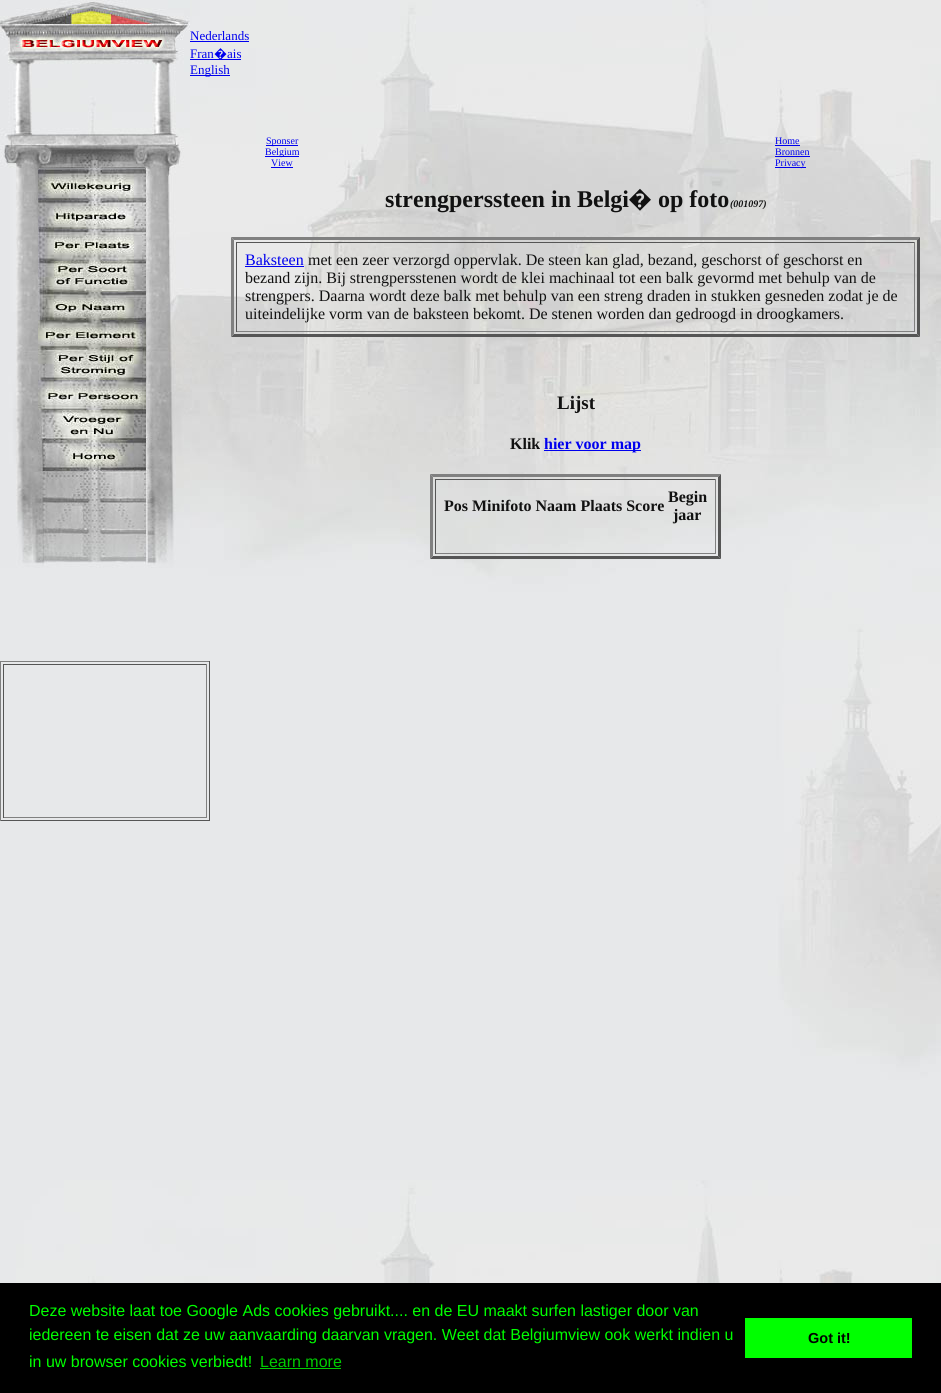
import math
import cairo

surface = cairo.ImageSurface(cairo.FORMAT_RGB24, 941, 1393)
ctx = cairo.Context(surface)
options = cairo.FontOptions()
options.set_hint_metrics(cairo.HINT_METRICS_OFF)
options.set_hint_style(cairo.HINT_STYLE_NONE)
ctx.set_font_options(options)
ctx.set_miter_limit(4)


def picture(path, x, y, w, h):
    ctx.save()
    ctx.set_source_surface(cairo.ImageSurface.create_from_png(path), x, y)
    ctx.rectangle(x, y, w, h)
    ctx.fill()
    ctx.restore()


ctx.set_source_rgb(1, 1, 1)
ctx.paint()
picture("img1.png", 0, 0, 941, 1283)
picture("img2.png", 0, 0, 190, 568)
ctx.select_font_face("Liberation Serif")
ctx.set_font_size(13)
ctx.set_source_rgb(0, 0, 0.933)
ctx.move_to(190, 40)
ctx.show_text("Nederlands")
ctx.rectangle(190, 41, 59, 1)
ctx.fill()
ctx.move_to(190, 58)
ctx.show_text("Fran")
ctx.rectangle(190, 59, 51, 1)
ctx.fill()
ctx.select_font_face("Noto Sans")
ctx.move_to(214, 58)
ctx.show_text("�")
ctx.select_font_face("Liberation Serif")
ctx.move_to(227, 58)
ctx.show_text("ais")
ctx.rectangle(190, 75, 40, 1)
ctx.fill()
ctx.move_to(190, 74)
ctx.show_text("English")
ctx.rectangle(266, 145, 32, 1)
ctx.fill()
ctx.set_font_size(10)
ctx.move_to(266, 144)
ctx.show_text("Sponser")
ctx.rectangle(265, 156, 34, 1)
ctx.fill()
ctx.move_to(265, 155)
ctx.show_text("Belgium")
ctx.move_to(271, 166)
ctx.show_text("View")
ctx.rectangle(271, 167, 22, 1)
ctx.fill()
ctx.move_to(775, 144)
ctx.show_text("Home")
ctx.rectangle(775, 145, 25, 1)
ctx.fill()
ctx.move_to(775, 155)
ctx.show_text("Bronnen")
ctx.rectangle(775, 156, 35, 1)
ctx.fill()
ctx.rectangle(775, 167, 31, 1)
ctx.fill()
ctx.move_to(775, 166)
ctx.show_text("Privacy")
picture("img3.png", 38, 169, 108, 31)
picture("img4.png", 38, 200, 108, 29)
ctx.select_font_face("Liberation Serif", cairo.FONT_SLANT_NORMAL, cairo.FONT_WEIGHT_BOLD)
ctx.set_font_size(24)
ctx.set_source_rgb(0.067, 0.067, 0.067)
ctx.move_to(385, 207)
ctx.show_text("strengperssteen in Belgi")
ctx.select_font_face("Noto Sans", cairo.FONT_SLANT_NORMAL, cairo.FONT_WEIGHT_BOLD)
ctx.move_to(628, 207)
ctx.show_text("�")
ctx.select_font_face("Liberation Serif", cairo.FONT_SLANT_NORMAL, cairo.FONT_WEIGHT_BOLD)
ctx.move_to(658, 207)
ctx.show_text("op foto")
ctx.select_font_face("Liberation Serif", cairo.FONT_SLANT_ITALIC, cairo.FONT_WEIGHT_BOLD)
ctx.set_font_size(10)
ctx.move_to(730, 207)
ctx.show_text("(001097)")
ctx.set_source_rgb(0.502, 0.502, 0.502)
ctx.new_path()
ctx.move_to(231, 237)
ctx.line_to(920, 237)
ctx.line_to(917, 240)
ctx.line_to(234, 240)
ctx.close_path()
ctx.fill()
ctx.set_source_rgb(0.333, 0.333, 0.333)
ctx.new_path()
ctx.move_to(920, 237)
ctx.line_to(920, 337)
ctx.line_to(917, 334)
ctx.line_to(917, 240)
ctx.close_path()
ctx.fill()
ctx.new_path()
ctx.move_to(920, 337)
ctx.line_to(231, 337)
ctx.line_to(234, 334)
ctx.line_to(917, 334)
ctx.close_path()
ctx.fill()
ctx.set_source_rgb(0.502, 0.502, 0.502)
ctx.new_path()
ctx.move_to(231, 337)
ctx.line_to(231, 237)
ctx.line_to(234, 240)
ctx.line_to(234, 334)
ctx.close_path()
ctx.fill()
ctx.set_source_rgb(0.333, 0.333, 0.333)
ctx.rectangle(236, 242, 679, 1)
ctx.fill()
ctx.set_source_rgb(0.502, 0.502, 0.502)
ctx.rectangle(914, 242, 1, 90)
ctx.fill()
ctx.rectangle(236, 331, 679, 1)
ctx.fill()
ctx.set_source_rgb(0.333, 0.333, 0.333)
ctx.rectangle(236, 242, 1, 90)
ctx.fill()
ctx.select_font_face("Liberation Serif")
ctx.set_font_size(16)
ctx.set_source_rgb(0, 0, 0.933)
ctx.move_to(245, 265)
ctx.show_text("Baksteen")
ctx.rectangle(245, 266, 59, 1)
ctx.fill()
ctx.set_source_rgb(0.067, 0.067, 0.067)
ctx.move_to(308, 265)
ctx.show_text("met een zeer verzorgd oppervlak. De steen kan glad, bezand, geschorst of geschorst en")
ctx.move_to(245, 283)
ctx.show_text("bezand zijn. Bij strengpersstenen wordt de klei machinaal tot een balk gevormd met behulp van de")
ctx.move_to(245, 301)
ctx.show_text("strengpers. Daarna wordt deze balk met behulp van een streng draden in stukken gesneden zodat je de")
ctx.move_to(245, 319)
ctx.show_text("uiteindelijke vorm van de baksteen bekomt. De stenen worden dan gedroogd in droogkamers.")
ctx.select_font_face("Liberation Serif", cairo.FONT_SLANT_NORMAL, cairo.FONT_WEIGHT_BOLD)
ctx.set_font_size(19)
ctx.move_to(557, 409)
ctx.show_text("Lijst")
ctx.set_font_size(16)
ctx.move_to(510, 449)
ctx.show_text("Klik")
ctx.set_source_rgb(0, 0, 0.933)
ctx.rectangle(544, 450, 97, 1)
ctx.fill()
ctx.move_to(544, 449)
ctx.show_text("hier voor map")
ctx.set_source_rgb(0.502, 0.502, 0.502)
ctx.new_path()
ctx.move_to(430, 474)
ctx.line_to(721, 474)
ctx.line_to(718, 477)
ctx.line_to(433, 477)
ctx.close_path()
ctx.fill()
ctx.set_source_rgb(0.333, 0.333, 0.333)
ctx.new_path()
ctx.move_to(721, 474)
ctx.line_to(721, 559)
ctx.line_to(718, 556)
ctx.line_to(718, 477)
ctx.close_path()
ctx.fill()
ctx.new_path()
ctx.move_to(721, 559)
ctx.line_to(430, 559)
ctx.line_to(433, 556)
ctx.line_to(718, 556)
ctx.close_path()
ctx.fill()
ctx.set_source_rgb(0.502, 0.502, 0.502)
ctx.new_path()
ctx.move_to(430, 559)
ctx.line_to(430, 474)
ctx.line_to(433, 477)
ctx.line_to(433, 556)
ctx.close_path()
ctx.fill()
ctx.set_source_rgb(0.333, 0.333, 0.333)
ctx.rectangle(435, 479, 281, 1)
ctx.fill()
ctx.set_source_rgb(0.502, 0.502, 0.502)
ctx.rectangle(715, 479, 1, 75)
ctx.fill()
ctx.rectangle(435, 553, 281, 1)
ctx.fill()
ctx.set_source_rgb(0.333, 0.333, 0.333)
ctx.rectangle(435, 479, 1, 75)
ctx.fill()
ctx.set_source_rgb(0.067, 0.067, 0.067)
ctx.move_to(444, 511)
ctx.show_text("Pos Minifoto Naam Plaats Score")
ctx.move_to(668, 502)
ctx.show_text("Begin")
ctx.move_to(673, 520)
ctx.show_text("jaar")
picture("img5.png", 38, 229, 108, 32)
picture("img6.png", 38, 261, 108, 31)
picture("img7.png", 38, 292, 108, 28)
picture("img8.png", 38, 320, 108, 28)
picture("img9.png", 38, 348, 108, 32)
picture("img10.png", 38, 380, 108, 30)
picture("img11.png", 38, 410, 108, 30)
picture("img12.png", 38, 440, 108, 31)
ctx.set_source_rgb(0.502, 0.502, 0.502)
ctx.rectangle(0, 661, 210, 1)
ctx.fill()
ctx.set_source_rgb(0.333, 0.333, 0.333)
ctx.rectangle(209, 661, 1, 160)
ctx.fill()
ctx.rectangle(0, 820, 210, 1)
ctx.fill()
ctx.set_source_rgb(0.502, 0.502, 0.502)
ctx.rectangle(0, 661, 1, 160)
ctx.fill()
ctx.set_source_rgb(0.333, 0.333, 0.333)
ctx.rectangle(3, 664, 204, 1)
ctx.fill()
ctx.set_source_rgb(0.502, 0.502, 0.502)
ctx.rectangle(206, 664, 1, 154)
ctx.fill()
ctx.rectangle(3, 817, 204, 1)
ctx.fill()
ctx.set_source_rgb(0.333, 0.333, 0.333)
ctx.rectangle(3, 664, 1, 154)
ctx.fill()
ctx.set_source_rgb(0, 0, 0)
ctx.rectangle(0, 1283, 941, 110)
ctx.fill()
ctx.select_font_face("Liberation Sans")
ctx.set_source_rgb(0, 1, 0)
ctx.move_to(29, 1316)
ctx.show_text("Deze website laat toe Google Ads cookies gebruikt.... en de EU maakt surfen lastiger door van")
ctx.move_to(29, 1340)
ctx.show_text("iedereen te eisen dat ze uw aanvaarding daarvan vragen. Weet dat Belgiumview ook werkt indien u")
ctx.move_to(29, 1367)
ctx.show_text("in uw browser cookies verbiedt!")
ctx.set_source_rgb(0, 0.8, 0)
ctx.move_to(260, 1367)
ctx.show_text("Learn more")
ctx.rectangle(260, 1368, 81, 1)
ctx.fill()
ctx.set_source_rgb(0, 1, 0)
ctx.rectangle(745, 1318, 167, 40)
ctx.fill()
ctx.select_font_face("Liberation Sans", cairo.FONT_SLANT_NORMAL, cairo.FONT_WEIGHT_BOLD)
ctx.set_font_size(14.5)
ctx.set_source_rgb(0, 0, 0)
ctx.move_to(808, 1343)
ctx.show_text("Got it!")
surface.write_to_png("page.png")
